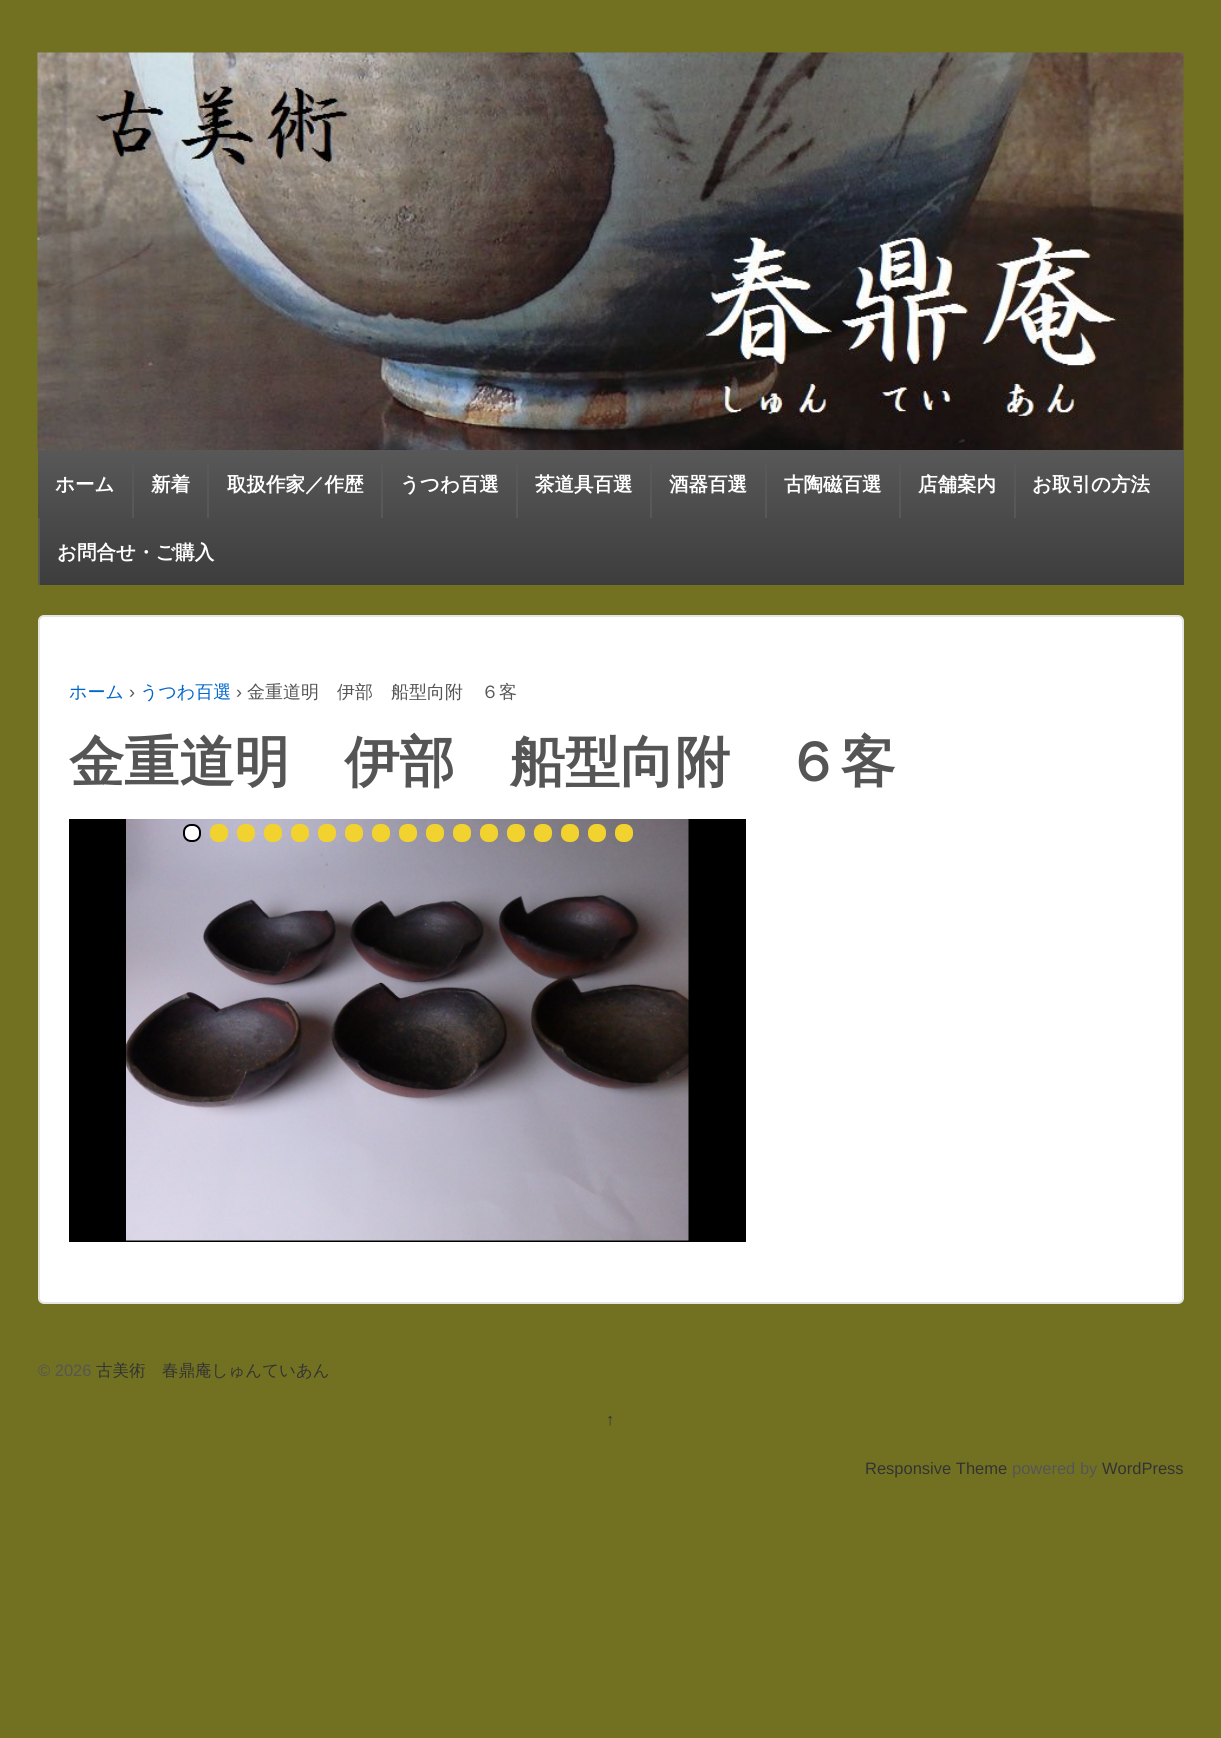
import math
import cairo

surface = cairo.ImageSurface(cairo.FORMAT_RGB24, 1221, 1738)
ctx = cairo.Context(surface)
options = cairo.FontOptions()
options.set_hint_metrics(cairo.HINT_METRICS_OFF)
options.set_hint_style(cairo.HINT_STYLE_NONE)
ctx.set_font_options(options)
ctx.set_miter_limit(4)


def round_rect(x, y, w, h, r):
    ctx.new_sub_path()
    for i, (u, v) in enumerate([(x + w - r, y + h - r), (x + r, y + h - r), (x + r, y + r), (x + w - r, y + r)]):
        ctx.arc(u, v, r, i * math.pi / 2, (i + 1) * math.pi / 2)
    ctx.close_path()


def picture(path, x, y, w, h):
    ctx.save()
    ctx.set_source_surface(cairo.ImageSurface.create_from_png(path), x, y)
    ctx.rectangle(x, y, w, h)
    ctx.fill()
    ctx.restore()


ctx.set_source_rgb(0.447, 0.443, 0.133)
ctx.paint()
picture("img1.png", 37, 52, 1147, 398)
gradient = cairo.LinearGradient(611, 450, 611, 585)
gradient.add_color_stop_rgba(0, 0.345, 0.345, 0.345, 1)
gradient.add_color_stop_rgba(1, 0.239, 0.239, 0.239, 1)
ctx.set_source(gradient)
ctx.rectangle(38, 450, 1146, 135)
ctx.fill()
ctx.select_font_face("WenQuanYi Zen Hei", cairo.FONT_SLANT_NORMAL, cairo.FONT_WEIGHT_BOLD)
ctx.set_font_size(19.5)
ctx.set_source_rgb(1, 1, 1)
ctx.move_to(55, 491)
ctx.show_text("ホーム")
ctx.set_source_rgb(0.345, 0.345, 0.345)
ctx.rectangle(132, 463, 2, 55)
ctx.fill()
ctx.set_source_rgb(1, 1, 1)
ctx.move_to(151, 491)
ctx.show_text("新着")
ctx.set_source_rgb(0.345, 0.345, 0.345)
ctx.rectangle(207, 463, 2, 55)
ctx.fill()
ctx.set_source_rgb(1, 1, 1)
ctx.move_to(227, 491)
ctx.show_text("取扱作家／作歴")
ctx.set_source_rgb(0.345, 0.345, 0.345)
ctx.rectangle(381, 463, 2, 55)
ctx.fill()
ctx.set_source_rgb(1, 1, 1)
ctx.move_to(400, 491)
ctx.show_text("うつわ百選")
ctx.set_source_rgb(0.345, 0.345, 0.345)
ctx.rectangle(516, 463, 2, 55)
ctx.fill()
ctx.set_source_rgb(1, 1, 1)
ctx.move_to(535, 491)
ctx.show_text("茶道具百選")
ctx.set_source_rgb(0.345, 0.345, 0.345)
ctx.rectangle(650, 463, 2, 55)
ctx.fill()
ctx.set_source_rgb(1, 1, 1)
ctx.move_to(669, 491)
ctx.show_text("酒器百選")
ctx.set_source_rgb(0.345, 0.345, 0.345)
ctx.rectangle(765, 463, 2, 55)
ctx.fill()
ctx.set_source_rgb(1, 1, 1)
ctx.move_to(784, 491)
ctx.show_text("古陶磁百選")
ctx.set_source_rgb(0.345, 0.345, 0.345)
ctx.rectangle(899, 463, 2, 55)
ctx.fill()
ctx.set_source_rgb(1, 1, 1)
ctx.move_to(918, 491)
ctx.show_text("店舗案内")
ctx.set_source_rgb(0.345, 0.345, 0.345)
ctx.rectangle(1014, 463, 2, 55)
ctx.fill()
ctx.set_source_rgb(1, 1, 1)
ctx.move_to(1032, 491)
ctx.show_text("お取引の方法")
ctx.set_source_rgb(0.345, 0.345, 0.345)
ctx.rectangle(38, 518, 2, 67)
ctx.fill()
ctx.set_source_rgb(1, 1, 1)
ctx.move_to(57, 559)
ctx.show_text("お問合せ・ご購入")
round_rect(39, 616, 1144, 687, 5)
ctx.fill_preserve()
ctx.set_source_rgb(0.898, 0.898, 0.898)
ctx.stroke()
ctx.select_font_face("WenQuanYi Zen Hei Medium")
ctx.set_font_size(18)
ctx.set_source_rgb(0, 0.4, 0.8)
ctx.move_to(69, 698)
ctx.show_text("ホーム")
ctx.select_font_face("Liberation Sans")
ctx.set_source_rgb(0.333, 0.333, 0.333)
ctx.move_to(129, 698)
ctx.show_text("›")
ctx.select_font_face("WenQuanYi Zen Hei Medium")
ctx.set_source_rgb(0, 0.4, 0.8)
ctx.move_to(140, 698)
ctx.show_text("うつわ百選")
ctx.select_font_face("Liberation Sans")
ctx.set_source_rgb(0.333, 0.333, 0.333)
ctx.move_to(236, 698)
ctx.show_text("›")
ctx.select_font_face("WenQuanYi Zen Hei Medium")
ctx.move_to(247, 698)
ctx.show_text("金重道明　伊部　船型向附　６客")
ctx.select_font_face("WenQuanYi Zen Hei", cairo.FONT_SLANT_NORMAL, cairo.FONT_WEIGHT_BOLD)
ctx.set_font_size(55.1)
ctx.move_to(69, 781)
ctx.show_text("金重道明　伊部　船型向附　６客")
ctx.set_source_rgb(0, 0, 0)
ctx.rectangle(69, 819, 677, 423)
ctx.fill()
picture("img2.png", 126, 819, 563, 422)
ctx.set_source_rgb(1, 1, 1)
round_rect(184, 825, 16, 16, 7)
ctx.fill_preserve()
ctx.set_source_rgb(0, 0, 0)
ctx.stroke()
ctx.set_source_rgb(0.949, 0.824, 0.18)
round_rect(210, 824, 18, 18, 8)
ctx.fill()
round_rect(237, 824, 18, 18, 8)
ctx.fill()
round_rect(264, 824, 18, 18, 8)
ctx.fill()
round_rect(291, 824, 18, 18, 8)
ctx.fill()
round_rect(318, 824, 18, 18, 8)
ctx.fill()
round_rect(345, 824, 18, 18, 8)
ctx.fill()
round_rect(372, 824, 18, 18, 8)
ctx.fill()
round_rect(399, 824, 18, 18, 8)
ctx.fill()
round_rect(426, 824, 18, 18, 8)
ctx.fill()
round_rect(453, 824, 18, 18, 8)
ctx.fill()
round_rect(480, 824, 18, 18, 8)
ctx.fill()
round_rect(507, 824, 18, 18, 8)
ctx.fill()
round_rect(534, 824, 18, 18, 8)
ctx.fill()
round_rect(561, 824, 18, 18, 8)
ctx.fill()
round_rect(588, 824, 18, 18, 8)
ctx.fill()
round_rect(615, 824, 18, 18, 8)
ctx.fill()
ctx.select_font_face("Liberation Sans")
ctx.set_font_size(16.5)
ctx.set_source_rgb(0.333, 0.333, 0.333)
ctx.move_to(38, 1376)
ctx.show_text("© 2026")
ctx.select_font_face("WenQuanYi Zen Hei Medium")
ctx.set_source_rgb(0.2, 0.2, 0.2)
ctx.move_to(96, 1376)
ctx.show_text("古美術　春鼎庵しゅんていあん")
ctx.select_font_face("Liberation Sans")
ctx.move_to(606, 1425)
ctx.show_text("↑")
ctx.move_to(865, 1474)
ctx.show_text("Responsive Theme")
ctx.set_source_rgb(0.333, 0.333, 0.333)
ctx.move_to(1012, 1474)
ctx.show_text("powered by")
ctx.set_source_rgb(0.2, 0.2, 0.2)
ctx.move_to(1102, 1474)
ctx.show_text("WordPress")
surface.write_to_png("page.png")
